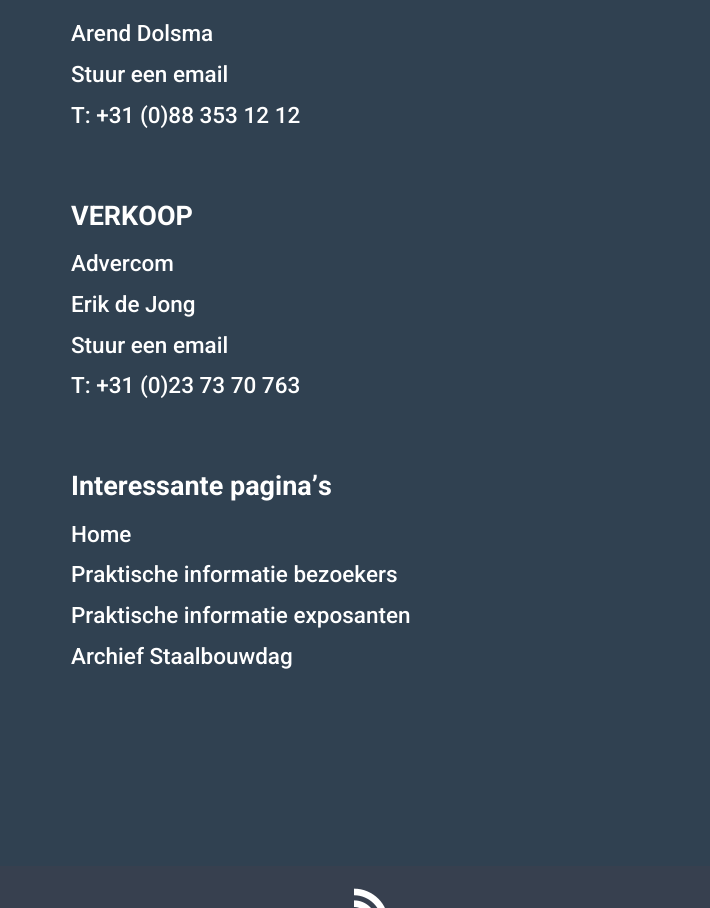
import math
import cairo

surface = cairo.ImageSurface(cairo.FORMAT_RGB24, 710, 908)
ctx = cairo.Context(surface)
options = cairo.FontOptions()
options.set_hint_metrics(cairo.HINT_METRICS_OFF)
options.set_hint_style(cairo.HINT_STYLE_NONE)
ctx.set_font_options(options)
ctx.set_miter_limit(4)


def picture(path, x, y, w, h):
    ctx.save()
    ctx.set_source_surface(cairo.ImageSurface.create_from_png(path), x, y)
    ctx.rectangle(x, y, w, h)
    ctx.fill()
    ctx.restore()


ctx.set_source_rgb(0.188, 0.255, 0.318)
ctx.paint()
ctx.select_font_face("Roboto Medium")
ctx.set_font_size(22.5)
ctx.set_source_rgb(1, 1, 1)
ctx.move_to(71, 41)
ctx.show_text("Arend Dolsma")
ctx.move_to(71, 82)
ctx.show_text("Stuur een email")
ctx.move_to(71, 123)
ctx.show_text("T: +31 (0)88 353 12 12")
ctx.select_font_face("Roboto", cairo.FONT_SLANT_NORMAL, cairo.FONT_WEIGHT_BOLD)
ctx.set_font_size(27)
ctx.move_to(71, 225)
ctx.show_text("VERKOOP")
ctx.select_font_face("Roboto Medium")
ctx.set_font_size(22.5)
ctx.move_to(71, 271)
ctx.show_text("Advercom")
ctx.move_to(71, 312)
ctx.show_text("Erik de Jong")
ctx.move_to(71, 353)
ctx.show_text("Stuur een email")
ctx.move_to(71, 393)
ctx.show_text("T: +31 (0)23 73 70 763")
ctx.select_font_face("Roboto", cairo.FONT_SLANT_NORMAL, cairo.FONT_WEIGHT_BOLD)
ctx.set_font_size(27)
ctx.move_to(71, 495)
ctx.show_text("Interessante pagina’s")
ctx.select_font_face("Roboto Medium")
ctx.set_font_size(22.5)
ctx.move_to(71, 542)
ctx.show_text("Home")
ctx.move_to(71, 582)
ctx.show_text("Praktische informatie bezoekers")
ctx.move_to(71, 623)
ctx.show_text("Praktische informatie exposanten")
ctx.move_to(71, 664)
ctx.show_text("Archief Staalbouwdag")
ctx.set_source_rgb(0.216, 0.251, 0.31)
ctx.rectangle(0, 866, 710, 42)
ctx.fill()
picture("img1.png", 354, 888, 31, 20)
surface.write_to_png("page.png")
